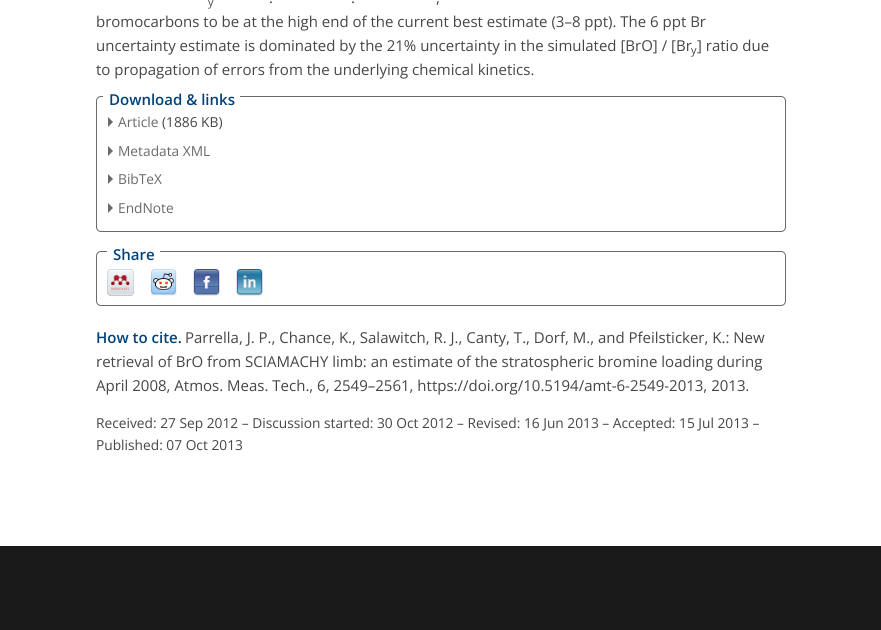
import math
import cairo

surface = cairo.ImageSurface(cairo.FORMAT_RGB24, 881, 630)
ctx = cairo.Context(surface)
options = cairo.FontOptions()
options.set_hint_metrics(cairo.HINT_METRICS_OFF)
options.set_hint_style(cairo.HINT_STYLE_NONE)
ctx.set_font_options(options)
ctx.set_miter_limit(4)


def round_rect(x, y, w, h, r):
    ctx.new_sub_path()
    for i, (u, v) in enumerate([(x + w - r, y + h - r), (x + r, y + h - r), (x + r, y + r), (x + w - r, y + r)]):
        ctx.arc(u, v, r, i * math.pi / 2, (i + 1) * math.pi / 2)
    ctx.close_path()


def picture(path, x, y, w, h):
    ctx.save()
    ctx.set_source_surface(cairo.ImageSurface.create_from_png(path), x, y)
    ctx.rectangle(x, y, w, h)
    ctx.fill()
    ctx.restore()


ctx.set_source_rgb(1, 1, 1)
ctx.paint()
ctx.select_font_face("Open Sans")
ctx.set_font_size(11)
ctx.set_source_rgb(0.275, 0.275, 0.275)
ctx.move_to(208, 6)
ctx.show_text("y")
ctx.set_font_size(15)
ctx.move_to(269, 3)
ctx.show_text(".")
ctx.move_to(351, 3)
ctx.show_text(".")
ctx.move_to(436, 3)
ctx.show_text(",")
ctx.move_to(96, 27)
ctx.show_text("bromocarbons to be at the high end of the current best estimate (3–8 ppt). The 6 ppt Br")
ctx.move_to(96, 51)
ctx.show_text("uncertainty estimate is dominated by the 21% uncertainty in the simulated [BrO] / [Br")
ctx.set_font_size(11)
ctx.move_to(691, 54)
ctx.show_text("y")
ctx.set_font_size(15)
ctx.move_to(697, 51)
ctx.show_text("] ratio due")
ctx.move_to(96, 75)
ctx.show_text("to propagation of errors from the underlying chemical kinetics.")
round_rect(96.5, 96.5, 689, 135, 4.5)
ctx.set_source_rgb(0.416, 0.416, 0.416)
ctx.set_line_width(1)
ctx.stroke()
ctx.set_source_rgb(1, 1, 1)
ctx.rectangle(103, 96, 137, 1)
ctx.fill()
ctx.select_font_face("Open Sans SemiBold")
ctx.set_source_rgb(0, 0.259, 0.475)
ctx.move_to(109, 105)
ctx.show_text("Download & links")
ctx.set_source_rgb(0.416, 0.416, 0.416)
ctx.new_path()
ctx.move_to(108, 127)
ctx.line_to(108, 117)
ctx.line_to(113, 122)
ctx.close_path()
ctx.move_to(108, 156)
ctx.line_to(108, 146)
ctx.line_to(113, 151)
ctx.close_path()
ctx.fill()
ctx.select_font_face("Open Sans")
ctx.set_font_size(13.75)
ctx.move_to(118, 127)
ctx.show_text("Article")
ctx.set_source_rgb(0.275, 0.275, 0.275)
ctx.move_to(162, 127)
ctx.show_text("(1886 KB)")
ctx.set_source_rgb(0.416, 0.416, 0.416)
ctx.move_to(118, 156)
ctx.show_text("Metadata XML")
ctx.new_path()
ctx.move_to(108, 184)
ctx.line_to(108, 174)
ctx.line_to(113, 179)
ctx.close_path()
ctx.move_to(108, 213)
ctx.line_to(108, 203)
ctx.line_to(113, 208)
ctx.close_path()
ctx.fill()
ctx.move_to(118, 184)
ctx.show_text("BibTeX")
ctx.move_to(118, 213)
ctx.show_text("EndNote")
round_rect(96.5, 251.5, 689, 54, 4.5)
ctx.stroke()
ctx.set_source_rgb(1, 1, 1)
ctx.rectangle(107, 251, 53, 1)
ctx.fill()
ctx.select_font_face("Open Sans SemiBold")
ctx.set_font_size(15)
ctx.set_source_rgb(0, 0.259, 0.475)
ctx.move_to(113, 260)
ctx.show_text("Share")
picture("img1.png", 107, 269, 27, 27)
picture("img2.png", 150, 269, 27, 27)
picture("img3.png", 193, 269, 27, 27)
picture("img4.png", 236, 269, 27, 27)
ctx.move_to(96, 343)
ctx.show_text("How to cite.")
ctx.select_font_face("Open Sans")
ctx.set_source_rgb(0.275, 0.275, 0.275)
ctx.move_to(185, 343)
ctx.show_text("Parrella, J. P., Chance, K., Salawitch, R. J., Canty, T., Dorf, M., and Pfeilsticker, K.: New")
ctx.move_to(96, 367)
ctx.show_text("retrieval of BrO from SCIAMACHY limb: an estimate of the stratospheric bromine loading during")
ctx.move_to(96, 391)
ctx.show_text("April 2008, Atmos. Meas. Tech., 6, 2549–2561, https://doi.org/10.5194/amt-6-2549-2013, 2013.")
ctx.set_font_size(13.75)
ctx.move_to(96, 428)
ctx.show_text("Received: 27 Sep 2012 – Discussion started: 30 Oct 2012 – Revised: 16 Jun 2013 – Accepted: 15 Jul 2013 –")
ctx.move_to(96, 450)
ctx.show_text("Published: 07 Oct 2013")
ctx.set_source_rgb(0.102, 0.102, 0.102)
ctx.rectangle(0, 546, 881, 84)
ctx.fill()
surface.write_to_png("page.png")
